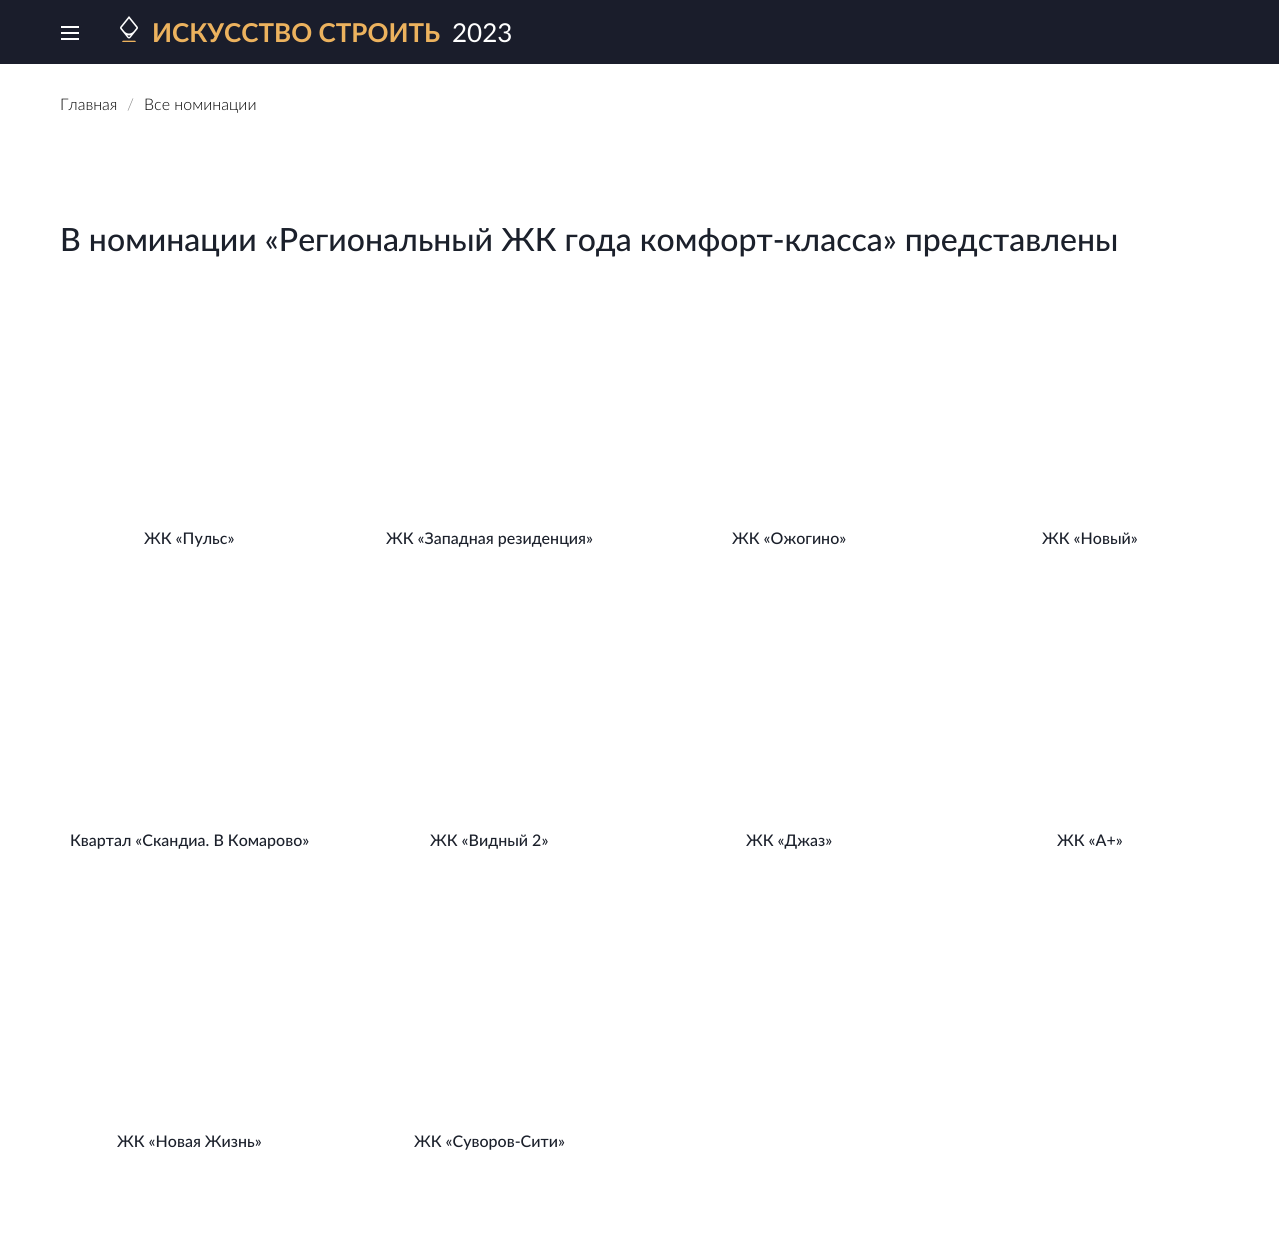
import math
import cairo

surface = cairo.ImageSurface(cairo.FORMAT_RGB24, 1279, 1235)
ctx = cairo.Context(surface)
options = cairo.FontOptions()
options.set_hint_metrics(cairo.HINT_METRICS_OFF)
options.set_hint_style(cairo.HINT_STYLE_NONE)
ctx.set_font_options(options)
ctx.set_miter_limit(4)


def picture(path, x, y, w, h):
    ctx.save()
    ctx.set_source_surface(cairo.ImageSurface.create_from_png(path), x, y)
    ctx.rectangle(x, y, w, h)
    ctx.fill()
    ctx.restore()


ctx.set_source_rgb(1, 1, 1)
ctx.paint()
ctx.set_source_rgb(0.102, 0.114, 0.169)
ctx.rectangle(0, 0, 1279, 64)
ctx.fill()
ctx.set_source_rgb(1, 1, 1)
ctx.rectangle(61, 26, 18, 2)
ctx.fill()
picture("img1.png", 120, 16, 18, 26)
ctx.select_font_face("Lato", cairo.FONT_SLANT_NORMAL, cairo.FONT_WEIGHT_BOLD)
ctx.set_font_size(26)
ctx.set_source_rgb(0.925, 0.698, 0.369)
ctx.move_to(152, 42)
ctx.show_text("ИСКУССТВО СТРОИТЬ")
ctx.select_font_face("Lato")
ctx.set_source_rgb(1, 1, 1)
ctx.move_to(452, 42)
ctx.show_text("2023")
ctx.rectangle(61, 32, 18, 2)
ctx.fill()
ctx.rectangle(61, 38, 18, 2)
ctx.fill()
ctx.select_font_face("Lato Light")
ctx.set_font_size(16)
ctx.set_source_rgb(0, 0, 0)
ctx.move_to(60, 110)
ctx.show_text("Главная")
ctx.set_source_rgb(0.522, 0.522, 0.522)
ctx.move_to(127, 110)
ctx.show_text("/")
ctx.set_source_rgb(0, 0, 0)
ctx.move_to(144, 110)
ctx.show_text("Все номинации")
ctx.select_font_face("Lato Medium")
ctx.set_font_size(32)
ctx.set_source_rgb(0.106, 0.125, 0.169)
ctx.move_to(60, 251)
ctx.show_text("В номинации «Региональный ЖК года комфорт-класса» представлены")
ctx.set_font_size(16)
ctx.move_to(144, 544)
ctx.show_text("ЖК «Пульс»")
ctx.move_to(386, 544)
ctx.show_text("ЖК «Западная резиденция»")
ctx.move_to(732, 544)
ctx.show_text("ЖК «Ожогино»")
ctx.move_to(1042, 544)
ctx.show_text("ЖК «Новый»")
ctx.move_to(70, 846)
ctx.show_text("Квартал «Скандиа. В Комарово»")
ctx.move_to(430, 846)
ctx.show_text("ЖК «Видный 2»")
ctx.move_to(746, 846)
ctx.show_text("ЖК «Джаз»")
ctx.move_to(1057, 846)
ctx.show_text("ЖК «А+»")
ctx.move_to(117, 1147)
ctx.show_text("ЖК «Новая Жизнь»")
ctx.move_to(414, 1147)
ctx.show_text("ЖК «Суворов-Сити»")
surface.write_to_png("page.png")
